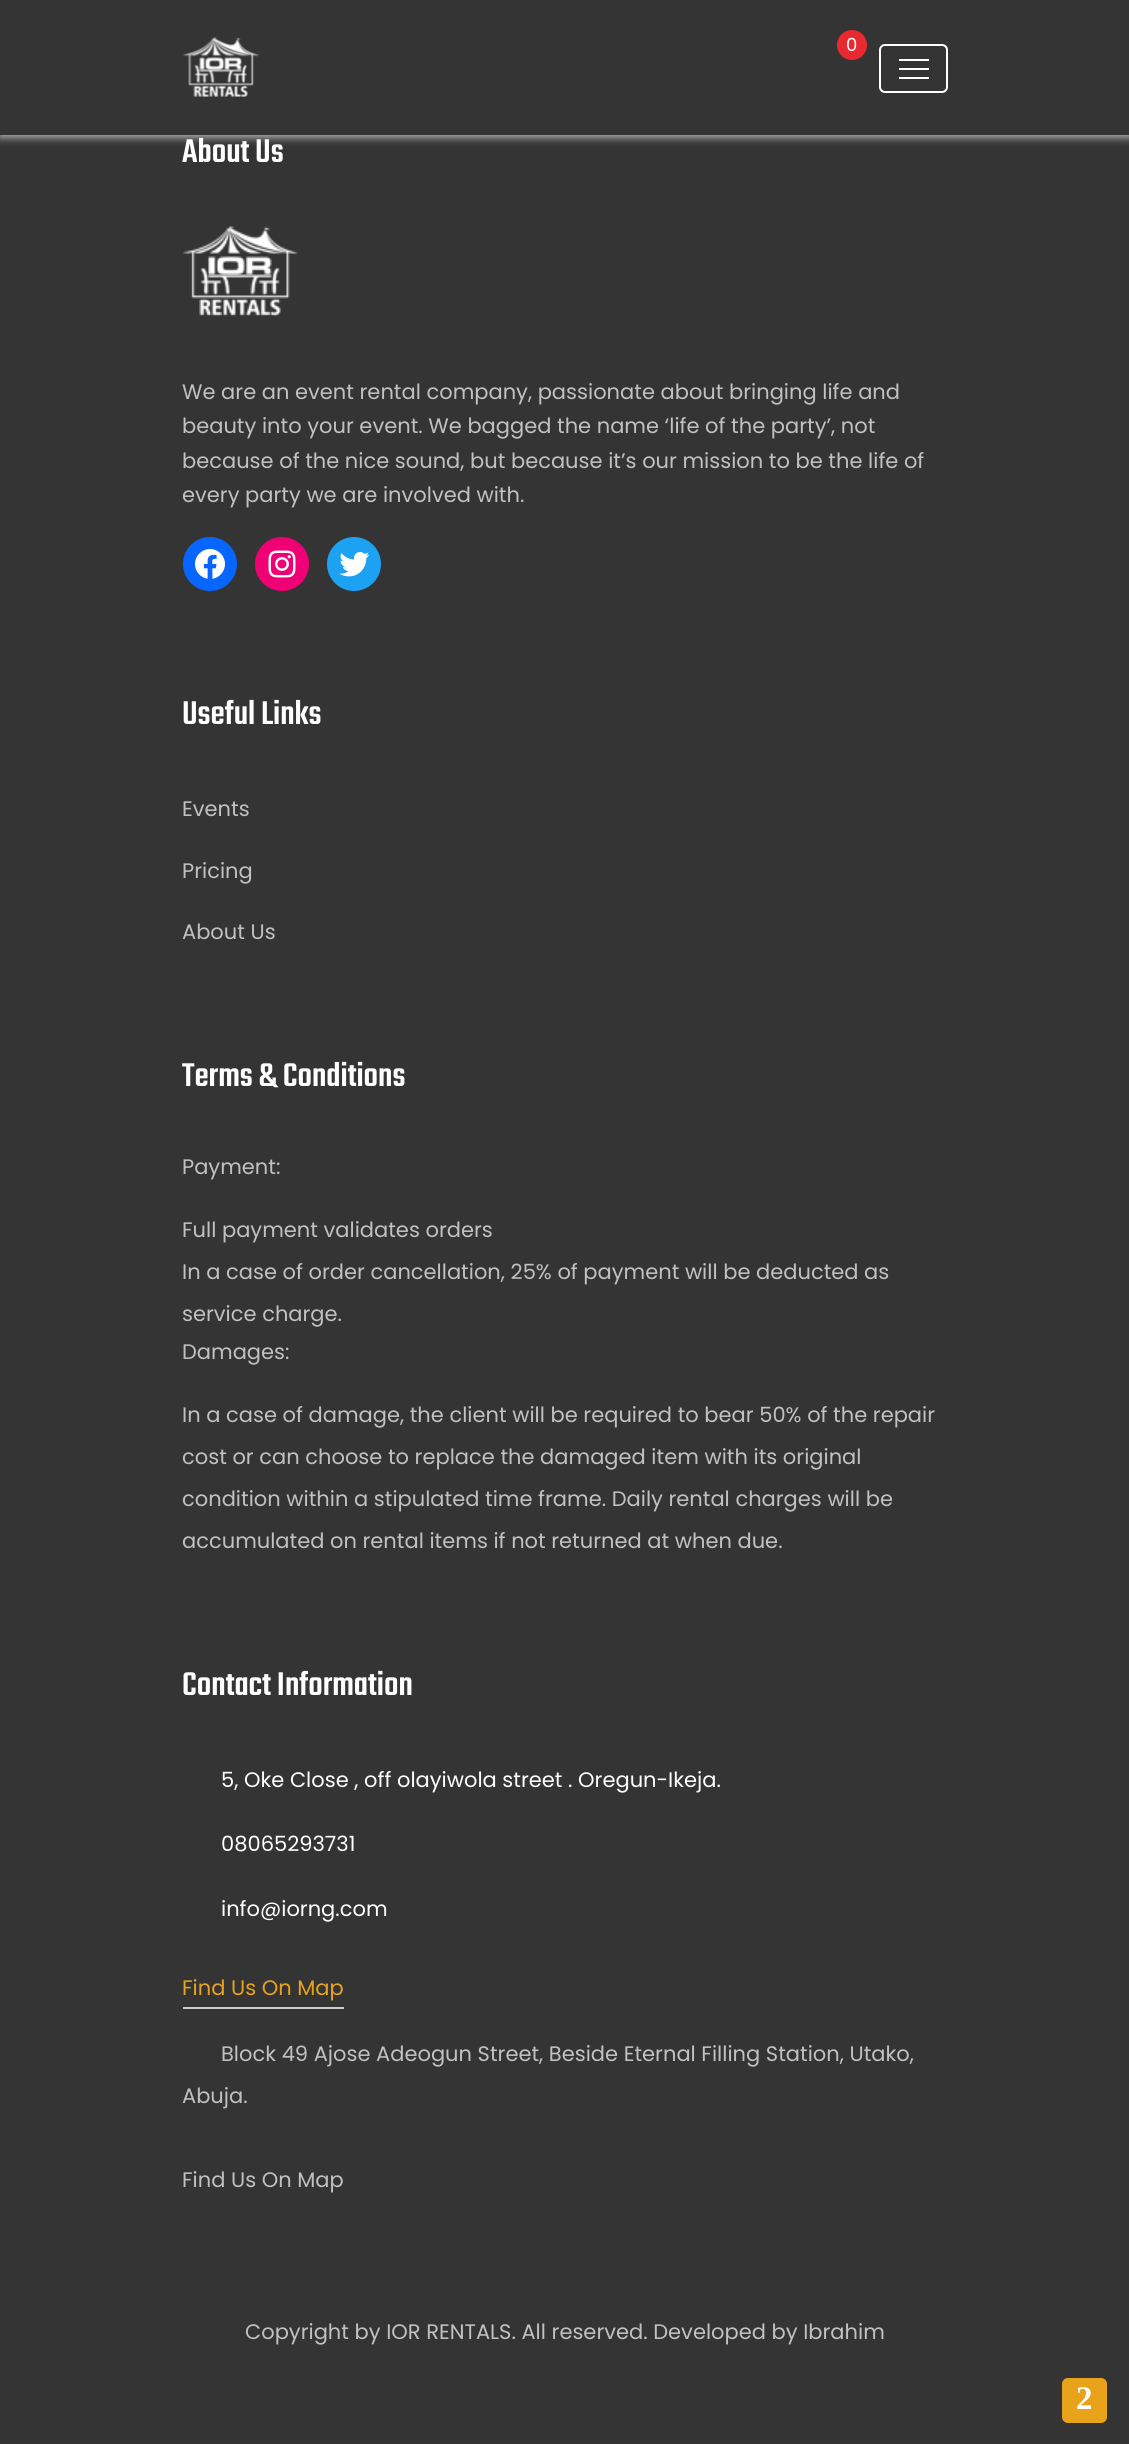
import math
import cairo

surface = cairo.ImageSurface(cairo.FORMAT_RGB24, 1129, 2444)
ctx = cairo.Context(surface)
options = cairo.FontOptions()
options.set_hint_metrics(cairo.HINT_METRICS_OFF)
options.set_hint_style(cairo.HINT_STYLE_NONE)
ctx.set_font_options(options)
ctx.set_miter_limit(4)


def round_rect(x, y, w, h, r):
    ctx.new_sub_path()
    for i, (u, v) in enumerate([(x + w - r, y + h - r), (x + r, y + h - r), (x + r, y + r), (x + w - r, y + r)]):
        ctx.arc(u, v, r, i * math.pi / 2, (i + 1) * math.pi / 2)
    ctx.close_path()


def shadow(x, y, w, h, r, blur, alpha):
    ctx.push_group_with_content(cairo.CONTENT_ALPHA)
    ctx.set_operator(cairo.OPERATOR_SOURCE)
    for i in range(15, -16, -2):
        e = blur * i / 6
        if min(w, h) + 2 * e > 0:
            ctx.set_source_rgba(0, 0, 0, alpha * math.erfc((i - 1) / 8.5) / 2)
            round_rect(x - e, y - e, w + 2 * e, h + 2 * e, max(0, min(r + e + blur * .6, min(w, h) / 2 + e)))
            ctx.fill()
    ctx.mask(ctx.pop_group())


def picture(path, x, y, w, h):
    ctx.save()
    ctx.set_source_surface(cairo.ImageSurface.create_from_png(path), x, y)
    ctx.rectangle(x, y, w, h)
    ctx.fill()
    ctx.restore()


ctx.set_source_rgb(0.204, 0.204, 0.204)
ctx.paint()
ctx.save()
ctx.rectangle(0, 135, 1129, 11)
ctx.clip()
ctx.set_source_rgb(0.773, 0.773, 0.773)
shadow(0, 2, 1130, 135, 0, 4.5, 1)
ctx.restore()
picture("img1.png", 183, 37, 76, 60)
ctx.set_source_rgb(0.91, 0.161, 0.188)
ctx.arc(852, 45, 15, 0, 2 * math.pi)
ctx.fill()
ctx.select_font_face("Poppins")
ctx.set_font_size(18)
ctx.set_source_rgb(1, 1, 1)
ctx.move_to(846, 51)
ctx.show_text("0")
round_rect(880, 45, 67, 47, 5)
ctx.stroke()
ctx.rectangle(899, 59, 30, 2)
ctx.fill()
ctx.rectangle(899, 68, 30, 2)
ctx.fill()
ctx.rectangle(899, 77, 30, 2)
ctx.fill()
ctx.select_font_face("Teko Medium")
ctx.set_font_size(36)
ctx.move_to(182, 162)
ctx.show_text("About Us")
picture("img2.png", 183, 226, 115, 90)
ctx.select_font_face("Poppins")
ctx.set_font_size(21)
ctx.set_source_rgb(0.757, 0.757, 0.757)
ctx.move_to(182, 399)
ctx.show_text("We are an event rental company, passionate about bringing life and")
ctx.move_to(182, 433)
ctx.show_text("beauty into your event. We bagged the name ‘life of the party’, not")
ctx.move_to(182, 468)
ctx.show_text("because of the nice sound, but because it’s our mission to be the life of")
ctx.move_to(182, 502)
ctx.show_text("every party we are involved with.")
ctx.set_source_rgb(0.031, 0.4, 1)
ctx.new_path()
ctx.arc(210, 564, 27, 0, 2 * math.pi)
ctx.fill()
picture("img3.png", 195, 549, 30, 30)
ctx.set_source_rgb(0.941, 0, 0.459)
ctx.arc(282, 564, 27, 0, 2 * math.pi)
ctx.fill()
picture("img4.png", 268, 550, 28, 28)
ctx.set_source_rgb(0.114, 0.631, 0.949)
ctx.arc(354, 564, 27, 0, 2 * math.pi)
ctx.fill()
picture("img5.png", 339, 552, 31, 25)
ctx.select_font_face("Teko Medium")
ctx.set_font_size(36)
ctx.set_source_rgb(1, 1, 1)
ctx.move_to(182, 724)
ctx.show_text("Useful Links")
ctx.select_font_face("Poppins")
ctx.set_font_size(21)
ctx.set_source_rgb(0.757, 0.757, 0.757)
ctx.move_to(182, 816)
ctx.show_text("Events")
ctx.move_to(182, 878)
ctx.show_text("Pricing")
ctx.move_to(182, 939)
ctx.show_text("About Us")
ctx.select_font_face("Teko Medium")
ctx.set_font_size(36)
ctx.set_source_rgb(1, 1, 1)
ctx.move_to(182, 1086)
ctx.show_text("Terms & Conditions")
ctx.select_font_face("Poppins")
ctx.set_font_size(21)
ctx.set_source_rgb(0.757, 0.757, 0.757)
ctx.move_to(182, 1174)
ctx.show_text("Payment:")
ctx.move_to(182, 1237)
ctx.show_text("Full payment validates orders")
ctx.move_to(182, 1279)
ctx.show_text("In a case of order cancellation, 25% of payment will be deducted as")
ctx.move_to(182, 1321)
ctx.show_text("service charge.")
ctx.move_to(182, 1359)
ctx.show_text("Damages:")
ctx.move_to(182, 1422)
ctx.show_text("In a case of damage, the client will be required to bear 50% of the repair")
ctx.move_to(182, 1464)
ctx.show_text("cost or can choose to replace the damaged item with its original")
ctx.move_to(182, 1506)
ctx.show_text("condition within a stipulated time frame. Daily rental charges will be")
ctx.move_to(182, 1548)
ctx.show_text("accumulated on rental items if not returned at when due.")
ctx.select_font_face("Teko Medium")
ctx.set_font_size(36)
ctx.set_source_rgb(1, 1, 1)
ctx.move_to(182, 1695)
ctx.show_text("Contact Information")
ctx.select_font_face("Poppins")
ctx.set_font_size(21)
ctx.move_to(221, 1787)
ctx.show_text("5, Oke Close , off olayiwola street . Oregun-Ikeja.")
ctx.move_to(221, 1851)
ctx.show_text("08065293731")
ctx.move_to(221, 1916)
ctx.show_text("info@iorng.com")
ctx.set_source_rgb(0.914, 0.639, 0.106)
ctx.move_to(182, 1995)
ctx.show_text("Find Us On Map")
ctx.set_source_rgb(0.8, 0.8, 0.8)
ctx.rectangle(183, 2007, 161, 2)
ctx.fill()
ctx.set_source_rgb(0.757, 0.757, 0.757)
ctx.move_to(221, 2061)
ctx.show_text("Block 49 Ajose Adeogun Street, Beside Eternal Filling Station, Utako,")
ctx.move_to(182, 2103)
ctx.show_text("Abuja.")
ctx.move_to(182, 2187)
ctx.show_text("Find Us On Map")
ctx.move_to(245, 2339)
ctx.show_text("Copyright by IOR RENTALS. All reserved. Developed by Ibrahim")
ctx.set_source_rgb(0.914, 0.639, 0.106)
round_rect(1062, 2378, 45, 45, 6)
ctx.fill()
ctx.select_font_face("Liberation Serif", cairo.FONT_SLANT_NORMAL, cairo.FONT_WEIGHT_BOLD)
ctx.set_font_size(33)
ctx.set_source_rgb(1, 1, 1)
ctx.move_to(1076, 2409)
ctx.show_text("2")
surface.write_to_png("page.png")
